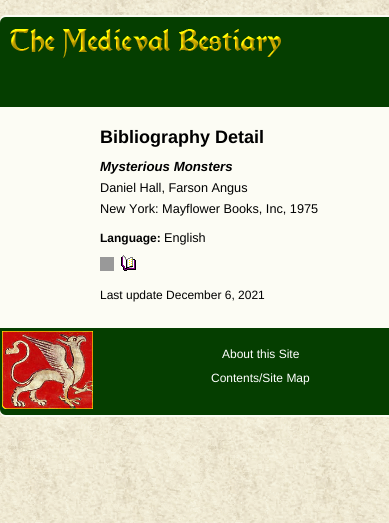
import math
import cairo

surface = cairo.ImageSurface(cairo.FORMAT_RGB24, 389, 523)
ctx = cairo.Context(surface)
options = cairo.FontOptions()
options.set_hint_metrics(cairo.HINT_METRICS_OFF)
options.set_hint_style(cairo.HINT_STYLE_NONE)
ctx.set_font_options(options)
ctx.set_miter_limit(4)


def round_rect(x, y, w, h, r):
    ctx.new_sub_path()
    for i, (u, v) in enumerate([(x + w - r, y + h - r), (x + r, y + h - r), (x + r, y + r), (x + w - r, y + r)]):
        ctx.arc(u, v, r, i * math.pi / 2, (i + 1) * math.pi / 2)
    ctx.close_path()


def picture(path, x, y, w, h):
    ctx.save()
    ctx.set_source_surface(cairo.ImageSurface.create_from_png(path), x, y)
    ctx.rectangle(x, y, w, h)
    ctx.fill()
    ctx.restore()


ctx.set_source_rgb(1, 1, 1)
ctx.paint()
picture("img1.png", 0, 0, 389, 523)
ctx.set_source_rgb(0.988, 0.988, 0.957)
round_rect(0, 15, 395, 402, 6)
ctx.fill()
ctx.set_source_rgb(0.02, 0.243, 0)
ctx.new_path()
ctx.move_to(6, 17)
ctx.line_to(389, 17)
ctx.curve_to(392.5, 17, 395, 19.5, 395, 23)
ctx.line_to(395, 107)
ctx.line_to(0, 107)
ctx.line_to(0, 23)
ctx.curve_to(0, 19.5, 2.5, 17, 6, 17)
ctx.close_path()
ctx.fill()
picture("img2.png", 10, 29, 271, 29)
ctx.select_font_face("Liberation Sans", cairo.FONT_SLANT_NORMAL, cairo.FONT_WEIGHT_BOLD)
ctx.set_font_size(18)
ctx.set_source_rgb(0, 0, 0)
ctx.move_to(100, 143)
ctx.show_text("Bibliography Detail")
ctx.select_font_face("Liberation Sans", cairo.FONT_SLANT_ITALIC, cairo.FONT_WEIGHT_BOLD)
ctx.set_font_size(13.25)
ctx.move_to(100, 171)
ctx.show_text("Mysterious Monsters")
ctx.select_font_face("Liberation Sans")
ctx.set_font_size(12.7)
ctx.move_to(100, 192)
ctx.show_text("Daniel Hall, Farson Angus")
ctx.move_to(100, 213)
ctx.show_text("New York: Mayflower Books, Inc, 1975")
ctx.select_font_face("Liberation Sans", cairo.FONT_SLANT_NORMAL, cairo.FONT_WEIGHT_BOLD)
ctx.set_font_size(12)
ctx.move_to(100, 242)
ctx.show_text("Language:")
ctx.select_font_face("Liberation Sans")
ctx.set_font_size(12.7)
ctx.move_to(164, 242)
ctx.show_text("English")
ctx.set_source_rgb(0.6, 0.6, 0.6)
ctx.rectangle(100, 257, 14, 14)
ctx.fill()
picture("img3.png", 121, 255, 15, 16)
ctx.set_font_size(12)
ctx.set_source_rgb(0, 0, 0)
ctx.move_to(100, 299)
ctx.show_text("Last update December 6, 2021")
ctx.set_source_rgb(0.02, 0.243, 0)
ctx.new_path()
ctx.move_to(0, 328)
ctx.line_to(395, 328)
ctx.line_to(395, 409)
ctx.curve_to(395, 412.5, 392.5, 415, 389, 415)
ctx.line_to(6, 415)
ctx.curve_to(2.5, 415, 0, 412.5, 0, 409)
ctx.close_path()
ctx.fill()
picture("img4.png", 2, 331, 91, 78)
ctx.set_source_rgb(1, 1, 1)
ctx.move_to(222, 358)
ctx.show_text("About this Site")
ctx.move_to(211, 382)
ctx.show_text("Contents/Site Map")
surface.write_to_png("page.png")
